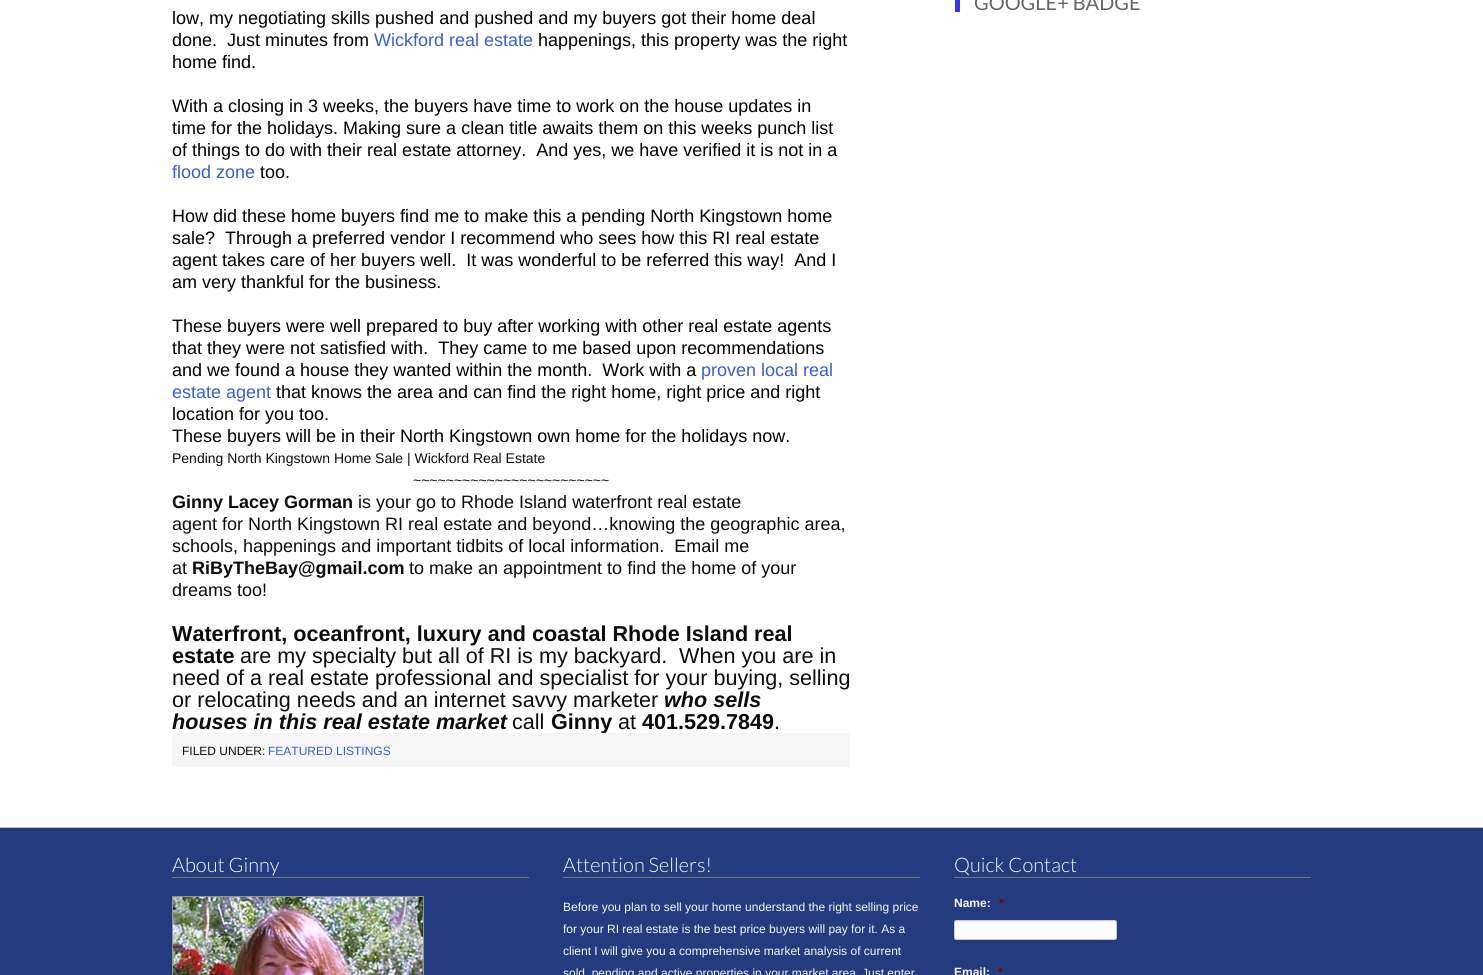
import math
import cairo

surface = cairo.ImageSurface(cairo.FORMAT_RGB24, 1483, 975)
ctx = cairo.Context(surface)
options = cairo.FontOptions()
options.set_hint_metrics(cairo.HINT_METRICS_OFF)
options.set_hint_style(cairo.HINT_STYLE_NONE)
ctx.set_font_options(options)
ctx.set_miter_limit(4)


def round_rect(x, y, w, h, r):
    ctx.new_sub_path()
    for i, (u, v) in enumerate([(x + w - r, y + h - r), (x + r, y + h - r), (x + r, y + r), (x + w - r, y + r)]):
        ctx.arc(u, v, r, i * math.pi / 2, (i + 1) * math.pi / 2)
    ctx.close_path()


def picture(path, x, y, w, h):
    ctx.save()
    ctx.set_source_surface(cairo.ImageSurface.create_from_png(path), x, y)
    ctx.rectangle(x, y, w, h)
    ctx.fill()
    ctx.restore()


ctx.set_source_rgb(1, 1, 1)
ctx.paint()
ctx.set_source_rgb(0.216, 0.212, 0.91)
ctx.rectangle(955, 0, 5, 12)
ctx.fill()
ctx.select_font_face("Lato")
ctx.set_font_size(20)
ctx.set_source_rgb(0.4, 0.4, 0.4)
ctx.move_to(974, 10)
ctx.show_text("GOOGLE+ BADGE")
ctx.select_font_face("Liberation Sans")
ctx.set_font_size(18)
ctx.set_source_rgb(0, 0, 0)
ctx.move_to(172, 24)
ctx.show_text("low, my negotiating skills pushed and pushed and my buyers got their home deal")
ctx.move_to(172, 46)
ctx.show_text("done.  Just minutes from")
ctx.set_source_rgb(0.227, 0.373, 0.8)
ctx.move_to(374, 46)
ctx.show_text("Wickford real estate")
ctx.set_source_rgb(0, 0, 0)
ctx.move_to(538, 46)
ctx.show_text("happenings, this property was the right")
ctx.move_to(172, 68)
ctx.show_text("home find.")
ctx.move_to(172, 112)
ctx.show_text("With a closing in 3 weeks, the buyers have time to work on the house updates in")
ctx.move_to(172, 134)
ctx.show_text("time for the holidays. Making sure a clean title awaits them on this weeks punch list")
ctx.move_to(172, 156)
ctx.show_text("of things to do with their real estate attorney.  And yes, we have verified it is not in a")
ctx.set_source_rgb(0.227, 0.373, 0.8)
ctx.move_to(172, 178)
ctx.show_text("flood zone")
ctx.set_source_rgb(0, 0, 0)
ctx.move_to(260, 178)
ctx.show_text("too.")
ctx.move_to(172, 222)
ctx.show_text("How did these home buyers find me to make this a pending North Kingstown home")
ctx.move_to(172, 244)
ctx.show_text("sale?  Through a preferred vendor I recommend who sees how this RI real estate")
ctx.move_to(172, 266)
ctx.show_text("agent takes care of her buyers well.  It was wonderful to be referred this way!  And I")
ctx.move_to(172, 288)
ctx.show_text("am very thankful for the business.")
ctx.move_to(172, 332)
ctx.show_text("These buyers were well prepared to buy after working with other real estate agents")
ctx.move_to(172, 354)
ctx.show_text("that they were not satisfied with.  They came to me based upon recommendations")
ctx.move_to(172, 376)
ctx.show_text("and we found a house they wanted within the month.  Work with a")
ctx.set_source_rgb(0.227, 0.373, 0.8)
ctx.move_to(701, 376)
ctx.show_text("proven local real")
ctx.move_to(172, 398)
ctx.show_text("estate agent")
ctx.set_source_rgb(0, 0, 0)
ctx.move_to(276, 398)
ctx.show_text("that knows the area and can find the right home, right price and right")
ctx.move_to(172, 420)
ctx.show_text("location for you too.")
ctx.move_to(172, 442)
ctx.show_text("These buyers will be in their North Kingstown own home for the holidays now.")
ctx.set_font_size(14)
ctx.set_source_rgb(0.047, 0.047, 0.047)
ctx.move_to(172, 463)
ctx.show_text("Pending North Kingstown Home Sale | Wickford Real Estate")
ctx.move_to(413, 485)
ctx.show_text("~~~~~~~~~~~~~~~~~~~~~~~~")
ctx.select_font_face("Liberation Sans", cairo.FONT_SLANT_NORMAL, cairo.FONT_WEIGHT_BOLD)
ctx.set_font_size(18)
ctx.move_to(172, 508)
ctx.show_text("Ginny Lacey Gorman")
ctx.select_font_face("Liberation Sans")
ctx.move_to(358, 508)
ctx.show_text("is your go to Rhode Island waterfront real estate")
ctx.move_to(172, 530)
ctx.show_text("agent for North Kingstown RI real estate and beyond…knowing the geographic area,")
ctx.move_to(172, 552)
ctx.show_text("schools, happenings and important tidbits of local information.  Email me")
ctx.move_to(172, 574)
ctx.show_text("at")
ctx.select_font_face("Liberation Sans", cairo.FONT_SLANT_NORMAL, cairo.FONT_WEIGHT_BOLD)
ctx.move_to(192, 574)
ctx.show_text("RiByTheBay@gmail.com")
ctx.select_font_face("Liberation Sans")
ctx.move_to(409, 574)
ctx.show_text("to make an appointment to find the home of your")
ctx.move_to(172, 596)
ctx.show_text("dreams too!")
ctx.select_font_face("Liberation Sans", cairo.FONT_SLANT_NORMAL, cairo.FONT_WEIGHT_BOLD)
ctx.set_font_size(21.6)
ctx.move_to(172, 641)
ctx.show_text("Waterfront, oceanfront, luxury and coastal Rhode Island real")
ctx.move_to(172, 663)
ctx.show_text("estate")
ctx.select_font_face("Liberation Sans")
ctx.move_to(240, 663)
ctx.show_text("are my specialty but all of RI is my backyard.")
ctx.move_to(679, 663)
ctx.show_text("When you are in")
ctx.move_to(172, 685)
ctx.show_text("need of a real estate professional and specialist for your buying, selling")
ctx.move_to(172, 707)
ctx.show_text("or relocating needs and an internet savvy marketer")
ctx.select_font_face("Liberation Sans", cairo.FONT_SLANT_ITALIC, cairo.FONT_WEIGHT_BOLD)
ctx.move_to(664, 707)
ctx.show_text("who sells")
ctx.move_to(172, 729)
ctx.show_text("houses in this real estate market")
ctx.select_font_face("Liberation Sans")
ctx.move_to(512, 729)
ctx.show_text("call")
ctx.select_font_face("Liberation Sans", cairo.FONT_SLANT_NORMAL, cairo.FONT_WEIGHT_BOLD)
ctx.move_to(551, 729)
ctx.show_text("Ginny")
ctx.select_font_face("Liberation Sans")
ctx.move_to(618, 729)
ctx.show_text("at")
ctx.select_font_face("Liberation Sans", cairo.FONT_SLANT_NORMAL, cairo.FONT_WEIGHT_BOLD)
ctx.move_to(642, 729)
ctx.show_text("401.529.7849")
ctx.select_font_face("Liberation Sans")
ctx.move_to(774, 729)
ctx.show_text(".")
ctx.set_source_rgb(0.961, 0.961, 0.961)
ctx.rectangle(172, 733, 678, 34)
ctx.fill()
ctx.set_font_size(12)
ctx.set_source_rgb(0.047, 0.047, 0.047)
ctx.move_to(182, 755)
ctx.show_text("FILED UNDER:")
ctx.set_source_rgb(0.227, 0.373, 0.8)
ctx.move_to(268, 755)
ctx.show_text("FEATURED LISTINGS")
ctx.set_source_rgb(0.141, 0.231, 0.498)
ctx.rectangle(0, 828, 1483, 147)
ctx.fill()
ctx.set_source_rgb(0.78, 0.78, 0.78)
ctx.rectangle(0, 827, 1483, 1)
ctx.fill()
ctx.set_source_rgb(0.463, 0.463, 0.463)
ctx.rectangle(172, 877, 357, 1)
ctx.fill()
ctx.select_font_face("Lato Light")
ctx.set_font_size(20)
ctx.set_source_rgb(0.965, 0.965, 0.965)
ctx.move_to(172, 872)
ctx.show_text("About Ginny")
ctx.rectangle(172.5, 896.5, 251, 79)
ctx.set_source_rgb(0.584, 0.584, 0.584)
ctx.set_line_width(1)
ctx.stroke()
picture("img1.png", 173, 897, 250, 78)
ctx.set_source_rgb(0.463, 0.463, 0.463)
ctx.rectangle(563, 877, 357, 1)
ctx.fill()
ctx.set_source_rgb(0.965, 0.965, 0.965)
ctx.move_to(563, 872)
ctx.show_text("Attention Sellers!")
ctx.select_font_face("Liberation Sans")
ctx.set_font_size(12)
ctx.move_to(563, 911)
ctx.show_text("Before you plan to sell your home understand the right selling price")
ctx.move_to(563, 933)
ctx.show_text("for your RI real estate is the best price buyers will pay for it. As a")
ctx.move_to(563, 955)
ctx.show_text("client I will give you a comprehensive market analysis of current")
ctx.move_to(563, 977)
ctx.show_text("sold, pending and active properties in your market area")
ctx.move_to(862, 977)
ctx.show_text("Just enter")
ctx.set_source_rgb(0.463, 0.463, 0.463)
ctx.rectangle(954, 877, 357, 1)
ctx.fill()
ctx.select_font_face("Lato Light")
ctx.set_font_size(20)
ctx.set_source_rgb(0.965, 0.965, 0.965)
ctx.move_to(954, 872)
ctx.show_text("Quick Contact")
ctx.select_font_face("Liberation Sans", cairo.FONT_SLANT_NORMAL, cairo.FONT_WEIGHT_BOLD)
ctx.set_font_size(12)
ctx.move_to(954, 907)
ctx.show_text("Name:")
ctx.set_source_rgb(0.475, 0, 0)
ctx.move_to(999, 907)
ctx.show_text("*")
ctx.set_source_rgb(1, 1, 1)
round_rect(954, 920, 163, 20, 3)
ctx.fill()
ctx.set_source_rgb(0.925, 0.925, 0.925)
ctx.new_path()
ctx.move_to(957, 922)
ctx.line_to(1114, 922)
ctx.curve_to(1115, 922, 1116, 923, 1116, 924)
ctx.curve_to(1116, 923, 1116, 921, 1114, 921)
ctx.line_to(957, 921)
ctx.curve_to(955, 921, 955, 923, 955, 924)
ctx.curve_to(955, 923, 956, 922, 957, 922)
ctx.close_path()
ctx.fill()
round_rect(954.5, 920.5, 162, 19, 2.5)
ctx.set_source_rgb(0.8, 0.8, 0.8)
ctx.stroke()
ctx.set_source_rgb(0.965, 0.965, 0.965)
ctx.move_to(954, 976)
ctx.show_text("Email:")
ctx.set_source_rgb(0.475, 0, 0)
ctx.move_to(998, 976)
ctx.show_text("*")
surface.write_to_png("page.png")
